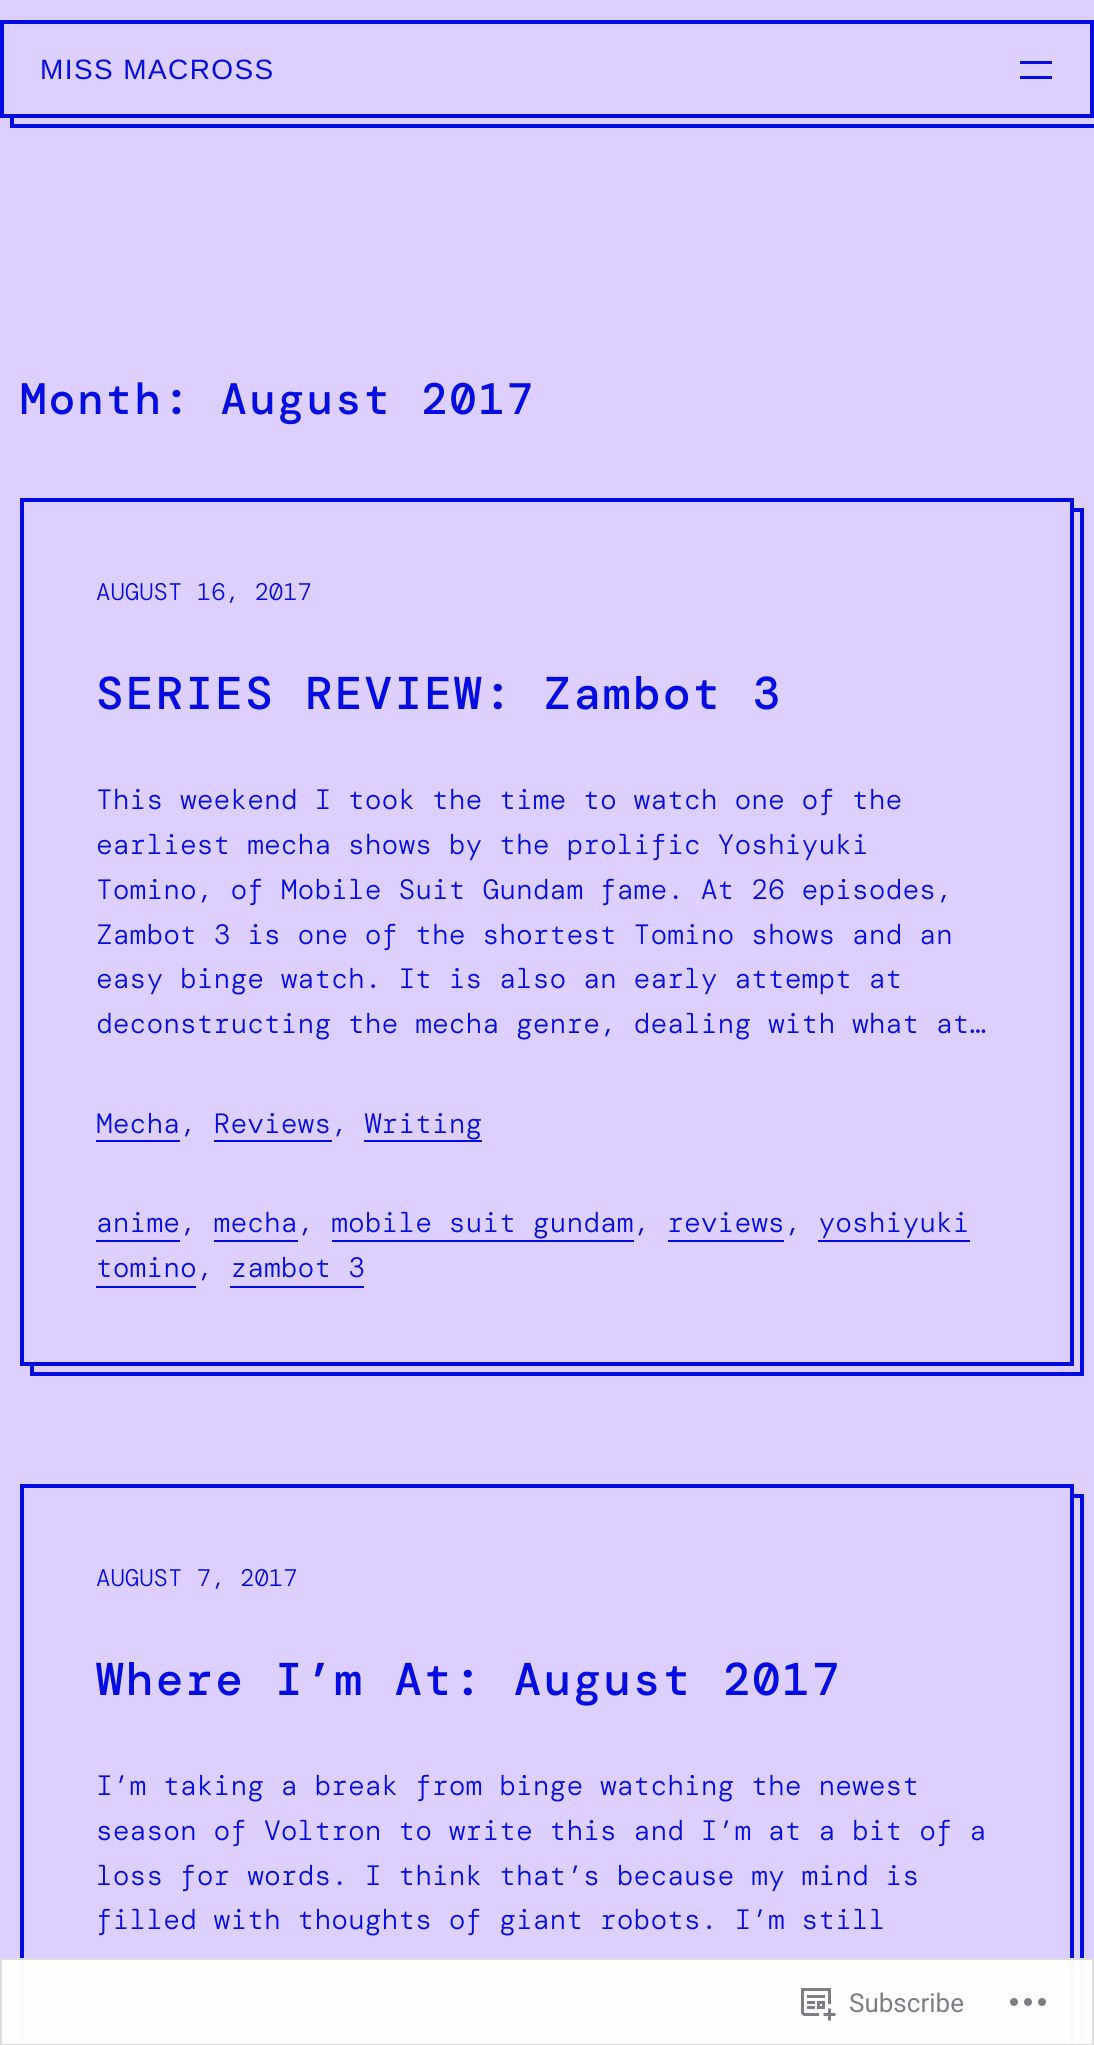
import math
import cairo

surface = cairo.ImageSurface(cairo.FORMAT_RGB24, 1094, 2045)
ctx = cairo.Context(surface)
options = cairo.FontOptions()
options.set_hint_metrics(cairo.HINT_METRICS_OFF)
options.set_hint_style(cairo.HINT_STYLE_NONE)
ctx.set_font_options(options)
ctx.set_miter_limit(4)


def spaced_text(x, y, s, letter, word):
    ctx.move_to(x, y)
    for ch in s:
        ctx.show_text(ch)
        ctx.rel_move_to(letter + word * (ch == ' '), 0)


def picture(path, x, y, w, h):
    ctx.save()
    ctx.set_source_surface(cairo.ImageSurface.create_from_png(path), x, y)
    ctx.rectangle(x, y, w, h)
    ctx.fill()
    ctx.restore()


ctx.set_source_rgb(0.867, 0.812, 1)
ctx.paint()
ctx.set_source_rgb(0.016, 0.051, 0.882)
ctx.new_path()
ctx.move_to(10, 118)
ctx.line_to(10, 128)
ctx.line_to(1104, 128)
ctx.line_to(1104, 30)
ctx.line_to(1094, 30)
ctx.line_to(1094, 118)
ctx.close_path()
ctx.fill()
ctx.set_source_rgb(0.867, 0.812, 1)
ctx.new_path()
ctx.move_to(14, 118)
ctx.line_to(14, 124)
ctx.line_to(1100, 124)
ctx.line_to(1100, 34)
ctx.line_to(1094, 34)
ctx.line_to(1094, 118)
ctx.close_path()
ctx.fill()
ctx.rectangle(2, 22, 1090, 94)
ctx.set_source_rgb(0.016, 0.051, 0.882)
ctx.set_line_width(4)
ctx.stroke()
ctx.select_font_face("Liberation Sans")
ctx.set_font_size(28)
spaced_text(40, 79, "MISS MACROSS", 1.4, 0)
ctx.rectangle(1020, 61, 32, 3)
ctx.fill()
ctx.rectangle(1020, 76, 32, 3)
ctx.fill()
ctx.select_font_face("DM Mono Medium")
ctx.set_font_size(44)
spaced_text(20, 414, "Month: August 2017", 2.25, 0)
ctx.new_path()
ctx.move_to(30, 1366)
ctx.line_to(30, 1376)
ctx.line_to(1084, 1376)
ctx.line_to(1084, 508)
ctx.line_to(1074, 508)
ctx.line_to(1074, 1366)
ctx.close_path()
ctx.fill()
ctx.set_source_rgb(0.867, 0.812, 1)
ctx.new_path()
ctx.move_to(34, 1366)
ctx.line_to(34, 1372)
ctx.line_to(1080, 1372)
ctx.line_to(1080, 512)
ctx.line_to(1074, 512)
ctx.line_to(1074, 1366)
ctx.close_path()
ctx.fill()
ctx.rectangle(22, 500, 1050, 864)
ctx.set_source_rgb(0.016, 0.051, 0.882)
ctx.stroke()
ctx.select_font_face("DM Mono Light")
ctx.set_font_size(24)
ctx.move_to(96, 600)
ctx.show_text("AUGUST 16, 2017")
ctx.select_font_face("DM Mono Medium")
ctx.set_font_size(45.9)
spaced_text(96, 709, "SERIES REVIEW: Zambot 3", 2.3, 0)
ctx.select_font_face("DM Mono Light")
ctx.set_font_size(28)
ctx.move_to(96, 809)
ctx.show_text("This weekend I took the time to watch one of the")
ctx.move_to(96, 854)
ctx.show_text("earliest mecha shows by the prolific Yoshiyuki")
ctx.move_to(96, 899)
ctx.show_text("Tomino, of Mobile Suit Gundam fame. At 26 episodes,")
ctx.move_to(96, 944)
ctx.show_text("Zambot 3 is one of the shortest Tomino shows and an")
ctx.move_to(96, 988)
ctx.show_text("easy binge watch. It is also an early attempt at")
ctx.move_to(96, 1033)
ctx.show_text("deconstructing the mecha genre, dealing with what at…")
ctx.move_to(96, 1133)
ctx.show_text("Mecha, Reviews, Writing")
ctx.rectangle(96, 1140, 84, 2)
ctx.fill()
ctx.rectangle(214, 1140, 118, 2)
ctx.fill()
ctx.rectangle(364, 1140, 118, 2)
ctx.fill()
ctx.move_to(96, 1232)
ctx.show_text("anime, mecha, mobile suit gundam, reviews, yoshiyuki")
ctx.rectangle(96, 1240, 84, 2)
ctx.fill()
ctx.rectangle(214, 1240, 84, 2)
ctx.fill()
ctx.rectangle(332, 1240, 302, 2)
ctx.fill()
ctx.rectangle(668, 1240, 116, 2)
ctx.fill()
ctx.move_to(96, 1277)
ctx.show_text("tomino, zambot 3")
ctx.rectangle(818, 1240, 152, 2)
ctx.fill()
ctx.rectangle(96, 1286, 100, 2)
ctx.fill()
ctx.rectangle(230, 1286, 134, 2)
ctx.fill()
ctx.new_path()
ctx.move_to(30, 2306)
ctx.line_to(30, 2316)
ctx.line_to(1084, 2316)
ctx.line_to(1084, 1494)
ctx.line_to(1074, 1494)
ctx.line_to(1074, 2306)
ctx.close_path()
ctx.fill()
ctx.set_source_rgb(0.867, 0.812, 1)
ctx.new_path()
ctx.move_to(34, 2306)
ctx.line_to(34, 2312)
ctx.line_to(1080, 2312)
ctx.line_to(1080, 1498)
ctx.line_to(1074, 1498)
ctx.line_to(1074, 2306)
ctx.close_path()
ctx.fill()
ctx.rectangle(22, 1486, 1050, 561)
ctx.set_source_rgb(0.016, 0.051, 0.882)
ctx.stroke()
ctx.set_font_size(24)
ctx.move_to(96, 1586)
ctx.show_text("AUGUST 7, 2017")
ctx.select_font_face("DM Mono Medium")
ctx.set_font_size(45.9)
spaced_text(96, 1695, "Where I’m At: August 2017", 2.3, 0)
ctx.select_font_face("DM Mono Light")
ctx.set_font_size(28)
ctx.move_to(96, 1795)
ctx.show_text("I’m taking a break from binge watching the newest")
ctx.move_to(96, 1840)
ctx.show_text("season of Voltron to write this and I’m at a bit of a")
ctx.move_to(96, 1885)
ctx.show_text("loss for words. I think that’s because my mind is")
ctx.move_to(96, 1929)
ctx.show_text("filled with thoughts of giant robots. I’m still")
ctx.set_source_rgba(1, 1, 1, 0.98)
ctx.rectangle(0, 1958, 1094, 87)
ctx.fill()
ctx.rectangle(1, 1959, 1092, 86)
ctx.set_source_rgba(0.863, 0.863, 0.871, 0.98)
ctx.set_line_width(2)
ctx.stroke()
picture("img1.png", 801, 1988, 35, 33)
ctx.select_font_face("Roboto")
ctx.set_font_size(26)
ctx.set_source_rgb(0.478, 0.494, 0.522)
ctx.move_to(849, 2012)
ctx.show_text("Subscribe")
picture("img2.png", 1010, 1998, 36, 8)
surface.write_to_png("page.png")
